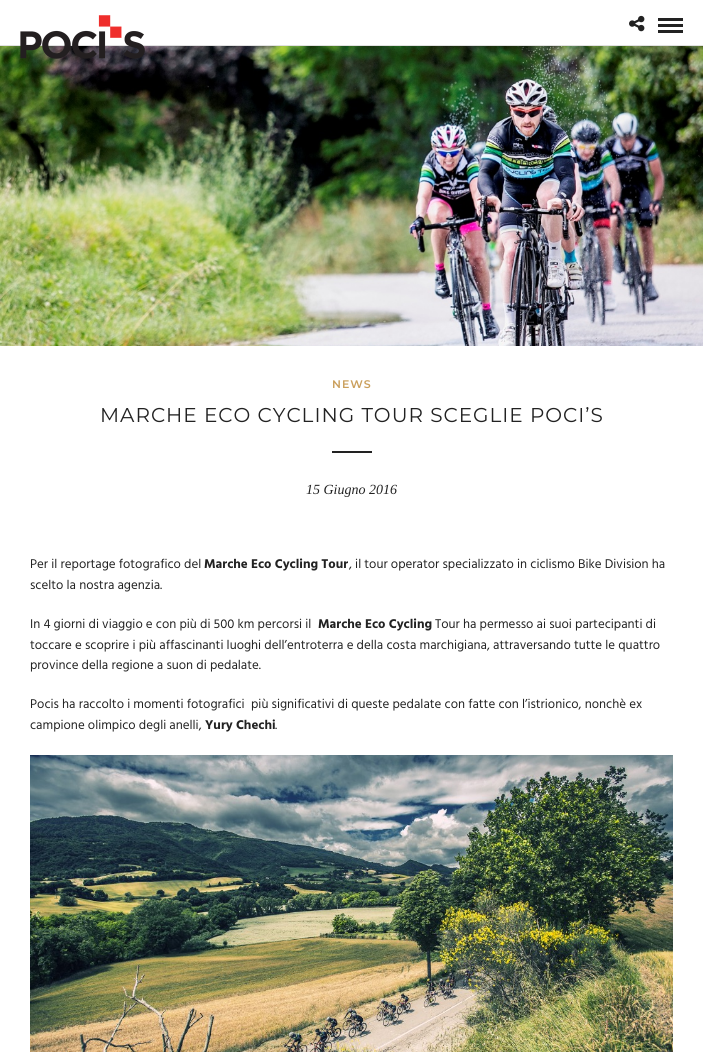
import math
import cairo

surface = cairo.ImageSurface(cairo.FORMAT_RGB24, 703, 1052)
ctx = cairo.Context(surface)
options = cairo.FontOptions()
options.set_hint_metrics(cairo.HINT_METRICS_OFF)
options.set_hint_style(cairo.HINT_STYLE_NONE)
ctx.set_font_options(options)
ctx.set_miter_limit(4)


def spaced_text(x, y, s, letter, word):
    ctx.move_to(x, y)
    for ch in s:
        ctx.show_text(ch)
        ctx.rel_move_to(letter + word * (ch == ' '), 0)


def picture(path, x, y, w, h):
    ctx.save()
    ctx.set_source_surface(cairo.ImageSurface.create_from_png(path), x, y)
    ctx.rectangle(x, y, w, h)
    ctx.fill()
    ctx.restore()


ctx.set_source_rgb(1, 1, 1)
ctx.paint()
ctx.set_source_rgb(0.882, 0.882, 0.882)
ctx.rectangle(0, 45, 703, 1)
ctx.fill()
picture("img3.png", 0, 46, 703, 300)
picture("img1.png", 20, 15, 125, 44)
picture("img2.png", 629, 15, 16, 17)
ctx.set_source_rgb(0.133, 0.133, 0.133)
ctx.rectangle(658, 18, 25, 3)
ctx.fill()
ctx.rectangle(658, 24, 25, 3)
ctx.fill()
ctx.rectangle(658, 30, 25, 3)
ctx.fill()
ctx.select_font_face("Montserrat SemiBold")
ctx.set_font_size(11)
ctx.set_source_rgb(0.792, 0.624, 0.361)
spaced_text(332, 388, "NEWS", 1, 0)
ctx.select_font_face("Montserrat")
ctx.set_font_size(20)
ctx.set_source_rgb(0.133, 0.133, 0.133)
spaced_text(100, 422, "MARCHE ECO CYCLING TOUR SCEGLIE POCI’S", 1, 0)
ctx.rectangle(332, 451, 40, 2)
ctx.fill()
ctx.select_font_face("Liberation Serif", cairo.FONT_SLANT_ITALIC)
ctx.set_font_size(14)
ctx.move_to(306, 494)
ctx.show_text("15 Giugno 2016")
ctx.select_font_face("Hind")
ctx.set_font_size(13)
ctx.move_to(30, 568)
ctx.show_text("Per il reportage fotografico del")
ctx.select_font_face("Hind", cairo.FONT_SLANT_NORMAL, cairo.FONT_WEIGHT_BOLD)
ctx.move_to(204, 568)
ctx.show_text("Marche Eco Cycling Tour")
ctx.select_font_face("Hind")
ctx.move_to(349, 568)
ctx.show_text(", il tour operator specializzato in ciclismo Bike Division ha")
ctx.move_to(30, 589)
ctx.show_text("scelto la nostra agenzia.")
ctx.move_to(30, 628)
ctx.show_text("In 4 giorni di viaggio e con più di 500 km percorsi il")
ctx.select_font_face("Hind", cairo.FONT_SLANT_NORMAL, cairo.FONT_WEIGHT_BOLD)
ctx.move_to(318, 628)
ctx.show_text("Marche Eco Cycling")
ctx.select_font_face("Hind")
ctx.move_to(435, 628)
ctx.show_text("Tour ha permesso ai suoi partecipanti di")
ctx.move_to(30, 649)
ctx.show_text("toccare e scoprire i più affascinanti luoghi dell’entroterra e della costa marchigiana, attraversando tutte le quattro")
ctx.move_to(30, 669)
ctx.show_text("province della regione a suon di pedalate.")
ctx.move_to(30, 708)
ctx.show_text("Pocis ha raccolto i momenti fotografici  più significativi di queste pedalate con fatte con l’istrionico, nonchè ex")
ctx.move_to(30, 729)
ctx.show_text("campione olimpico degli anelli,")
ctx.select_font_face("Hind", cairo.FONT_SLANT_NORMAL, cairo.FONT_WEIGHT_BOLD)
ctx.move_to(205, 729)
ctx.show_text("Yury Chechi")
ctx.select_font_face("Hind")
ctx.move_to(275, 729)
ctx.show_text(".")
picture("img4.png", 30, 755, 643, 297)
surface.write_to_png("page.png")
